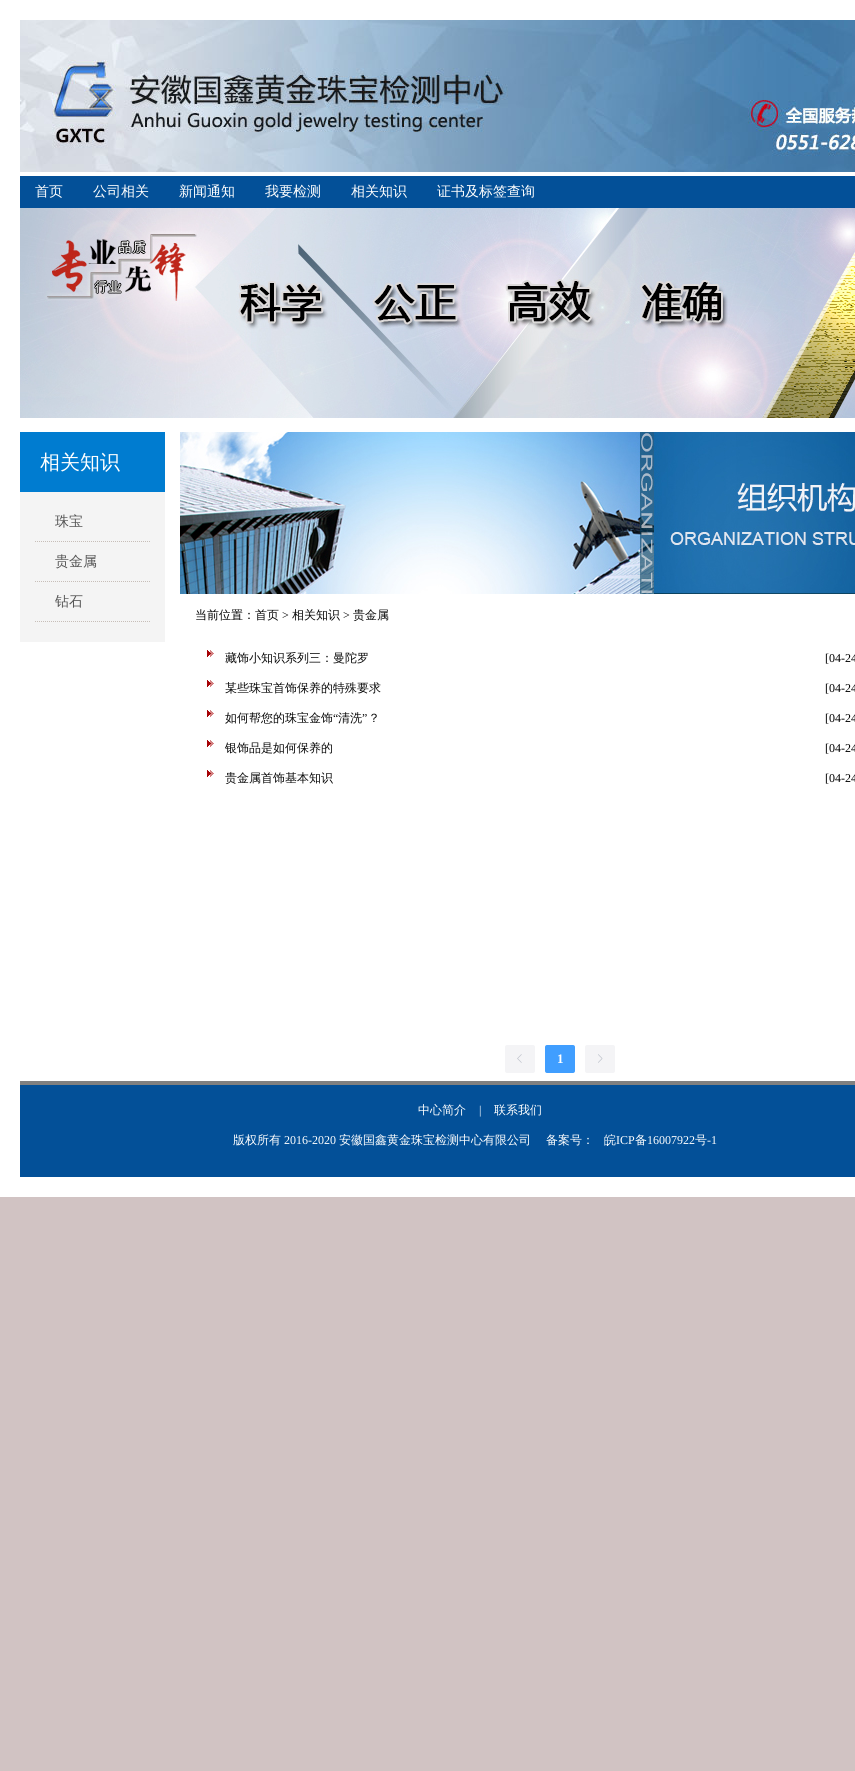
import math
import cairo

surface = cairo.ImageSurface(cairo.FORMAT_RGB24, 855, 1771)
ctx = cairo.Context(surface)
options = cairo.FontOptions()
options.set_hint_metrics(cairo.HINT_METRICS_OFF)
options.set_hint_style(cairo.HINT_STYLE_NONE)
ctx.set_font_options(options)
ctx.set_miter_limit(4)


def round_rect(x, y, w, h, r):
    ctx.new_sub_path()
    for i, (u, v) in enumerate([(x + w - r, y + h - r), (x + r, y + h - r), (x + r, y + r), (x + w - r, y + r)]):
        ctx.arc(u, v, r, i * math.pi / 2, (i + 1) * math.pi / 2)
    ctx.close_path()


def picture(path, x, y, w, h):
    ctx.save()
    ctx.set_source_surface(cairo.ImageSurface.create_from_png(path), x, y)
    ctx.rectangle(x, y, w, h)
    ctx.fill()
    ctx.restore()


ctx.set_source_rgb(0.82, 0.765, 0.765)
ctx.paint()
ctx.set_source_rgb(1, 1, 1)
ctx.rectangle(0, 0, 855, 1197)
ctx.fill()
picture("img1.png", 20, 20, 835, 152)
ctx.set_source_rgb(0.012, 0.314, 0.596)
ctx.rectangle(20, 176, 835, 32)
ctx.fill()
ctx.select_font_face("WenQuanYi Zen Hei Medium")
ctx.set_font_size(14)
ctx.set_source_rgb(1, 1, 1)
ctx.move_to(35, 196)
ctx.show_text("首页")
ctx.move_to(93, 196)
ctx.show_text("公司相关")
ctx.move_to(179, 196)
ctx.show_text("新闻通知")
ctx.move_to(265, 196)
ctx.show_text("我要检测")
ctx.move_to(351, 196)
ctx.show_text("相关知识")
ctx.move_to(437, 196)
ctx.show_text("证书及标签查询")
picture("img2.png", 20, 208, 835, 210)
ctx.set_source_rgb(0, 0.486, 0.816)
ctx.rectangle(20, 432, 145, 60)
ctx.fill()
ctx.set_font_size(20)
ctx.set_source_rgb(1, 1, 1)
ctx.move_to(40, 469)
ctx.show_text("相关知识")
ctx.set_source_rgb(0.957, 0.957, 0.957)
ctx.rectangle(20, 492, 145, 150)
ctx.fill()
ctx.new_path()
ctx.move_to(35, 541.5)
ctx.line_to(150, 541.5)
ctx.set_source_rgb(0.78, 0.745, 0.722)
ctx.set_line_width(1)
ctx.set_dash([1, 1])
ctx.stroke()
ctx.set_font_size(14)
ctx.set_source_rgb(0.333, 0.333, 0.333)
ctx.move_to(55, 526)
ctx.show_text("珠宝")
ctx.new_path()
ctx.move_to(35, 581.5)
ctx.line_to(150, 581.5)
ctx.set_source_rgb(0.78, 0.745, 0.722)
ctx.stroke()
ctx.set_source_rgb(0.333, 0.333, 0.333)
ctx.move_to(55, 566)
ctx.show_text("贵金属")
ctx.new_path()
ctx.move_to(35, 621.5)
ctx.line_to(150, 621.5)
ctx.set_source_rgb(0.78, 0.745, 0.722)
ctx.stroke()
ctx.set_source_rgb(0.333, 0.333, 0.333)
ctx.move_to(55, 606)
ctx.show_text("钻石")
picture("img3.png", 180, 432, 675, 162)
ctx.set_font_size(12)
ctx.set_source_rgb(0, 0, 0)
ctx.move_to(195, 619)
ctx.show_text("当前位置：")
ctx.set_source_rgb(0.039, 0.039, 0.039)
ctx.move_to(255, 619)
ctx.show_text("首页")
ctx.select_font_face("Liberation Serif")
ctx.set_source_rgb(0, 0, 0)
ctx.move_to(282, 619)
ctx.show_text(">")
ctx.select_font_face("WenQuanYi Zen Hei Medium")
ctx.set_source_rgb(0.039, 0.039, 0.039)
ctx.move_to(292, 619)
ctx.show_text("相关知识")
ctx.select_font_face("Liberation Serif")
ctx.set_source_rgb(0, 0, 0)
ctx.move_to(343, 619)
ctx.show_text(">")
ctx.select_font_face("WenQuanYi Zen Hei Medium")
ctx.set_source_rgb(0.039, 0.039, 0.039)
ctx.move_to(353, 619)
ctx.show_text("贵金属")
picture("img4.png", 207, 650, 7, 7)
ctx.move_to(225, 662)
ctx.show_text("藏饰小知识系列三：曼陀罗")
ctx.select_font_face("Liberation Serif")
ctx.set_source_rgb(0, 0, 0)
ctx.move_to(825, 662)
ctx.show_text("[04-24")
picture("img4.png", 207, 680, 7, 7)
ctx.select_font_face("WenQuanYi Zen Hei Medium")
ctx.set_source_rgb(0.039, 0.039, 0.039)
ctx.move_to(225, 692)
ctx.show_text("某些珠宝首饰保养的特殊要求")
ctx.select_font_face("Liberation Serif")
ctx.set_source_rgb(0, 0, 0)
ctx.move_to(825, 692)
ctx.show_text("[04-24")
picture("img4.png", 207, 710, 7, 7)
ctx.select_font_face("WenQuanYi Zen Hei Medium")
ctx.set_source_rgb(0.039, 0.039, 0.039)
ctx.move_to(225, 722)
ctx.show_text("如何帮您的珠宝金饰")
ctx.select_font_face("Liberation Serif")
ctx.move_to(333, 722)
ctx.show_text("“")
ctx.select_font_face("WenQuanYi Zen Hei Medium")
ctx.move_to(338, 722)
ctx.show_text("清洗")
ctx.select_font_face("Liberation Serif")
ctx.move_to(362, 722)
ctx.show_text("”")
ctx.select_font_face("WenQuanYi Zen Hei Medium")
ctx.move_to(368, 722)
ctx.show_text("？")
ctx.select_font_face("Liberation Serif")
ctx.set_source_rgb(0, 0, 0)
ctx.move_to(825, 722)
ctx.show_text("[04-24")
picture("img4.png", 207, 740, 7, 7)
ctx.select_font_face("WenQuanYi Zen Hei Medium")
ctx.set_source_rgb(0.039, 0.039, 0.039)
ctx.move_to(225, 752)
ctx.show_text("银饰品是如何保养的")
ctx.select_font_face("Liberation Serif")
ctx.set_source_rgb(0, 0, 0)
ctx.move_to(825, 752)
ctx.show_text("[04-24")
picture("img4.png", 207, 770, 7, 7)
ctx.select_font_face("WenQuanYi Zen Hei Medium")
ctx.set_source_rgb(0.039, 0.039, 0.039)
ctx.move_to(225, 782)
ctx.show_text("贵金属首饰基本知识")
ctx.select_font_face("Liberation Serif")
ctx.set_source_rgb(0, 0, 0)
ctx.move_to(825, 782)
ctx.show_text("[04-24")
ctx.set_source_rgb(0.957, 0.957, 0.961)
round_rect(505, 1045, 30, 28, 2)
ctx.fill()
picture("img5.png", 517, 1054, 5, 9)
ctx.set_source_rgb(0.251, 0.62, 1)
round_rect(545, 1045, 30, 28, 2)
ctx.fill()
ctx.select_font_face("Liberation Serif", cairo.FONT_SLANT_NORMAL, cairo.FONT_WEIGHT_BOLD)
ctx.set_font_size(13)
ctx.set_source_rgb(1, 1, 1)
ctx.move_to(557, 1063)
ctx.show_text("1")
ctx.set_source_rgb(0.957, 0.957, 0.961)
round_rect(585, 1045, 30, 28, 2)
ctx.fill()
picture("img6.png", 598, 1054, 5, 9)
ctx.set_source_rgb(0.012, 0.314, 0.596)
ctx.rectangle(20, 1085, 835, 92)
ctx.fill()
ctx.set_source_rgb(0.502, 0.502, 0.502)
ctx.rectangle(20, 1081, 835, 4)
ctx.fill()
ctx.select_font_face("WenQuanYi Zen Hei Medium")
ctx.set_font_size(12)
ctx.set_source_rgb(1, 1, 1)
ctx.move_to(418, 1114)
ctx.show_text("中心简介")
ctx.select_font_face("Liberation Serif")
ctx.move_to(479, 1114)
ctx.show_text("|")
ctx.select_font_face("WenQuanYi Zen Hei Medium")
ctx.move_to(494, 1114)
ctx.show_text("联系我们")
ctx.move_to(233, 1144)
ctx.show_text("版权所有")
ctx.select_font_face("Liberation Serif")
ctx.move_to(284, 1144)
ctx.show_text("2016-2020")
ctx.select_font_face("WenQuanYi Zen Hei Medium")
ctx.move_to(339, 1144)
ctx.show_text("安徽国鑫黄金珠宝检测中心有限公司")
ctx.move_to(546, 1144)
ctx.show_text("备案号：")
ctx.move_to(604, 1144)
ctx.show_text("皖")
ctx.select_font_face("Liberation Serif")
ctx.move_to(616, 1144)
ctx.show_text("ICP")
ctx.select_font_face("WenQuanYi Zen Hei Medium")
ctx.move_to(635, 1144)
ctx.show_text("备")
ctx.select_font_face("Liberation Serif")
ctx.move_to(647, 1144)
ctx.show_text("16007922")
ctx.select_font_face("WenQuanYi Zen Hei Medium")
ctx.move_to(695, 1144)
ctx.show_text("号")
ctx.select_font_face("Liberation Serif")
ctx.move_to(707, 1144)
ctx.show_text("-1")
surface.write_to_png("page.png")
